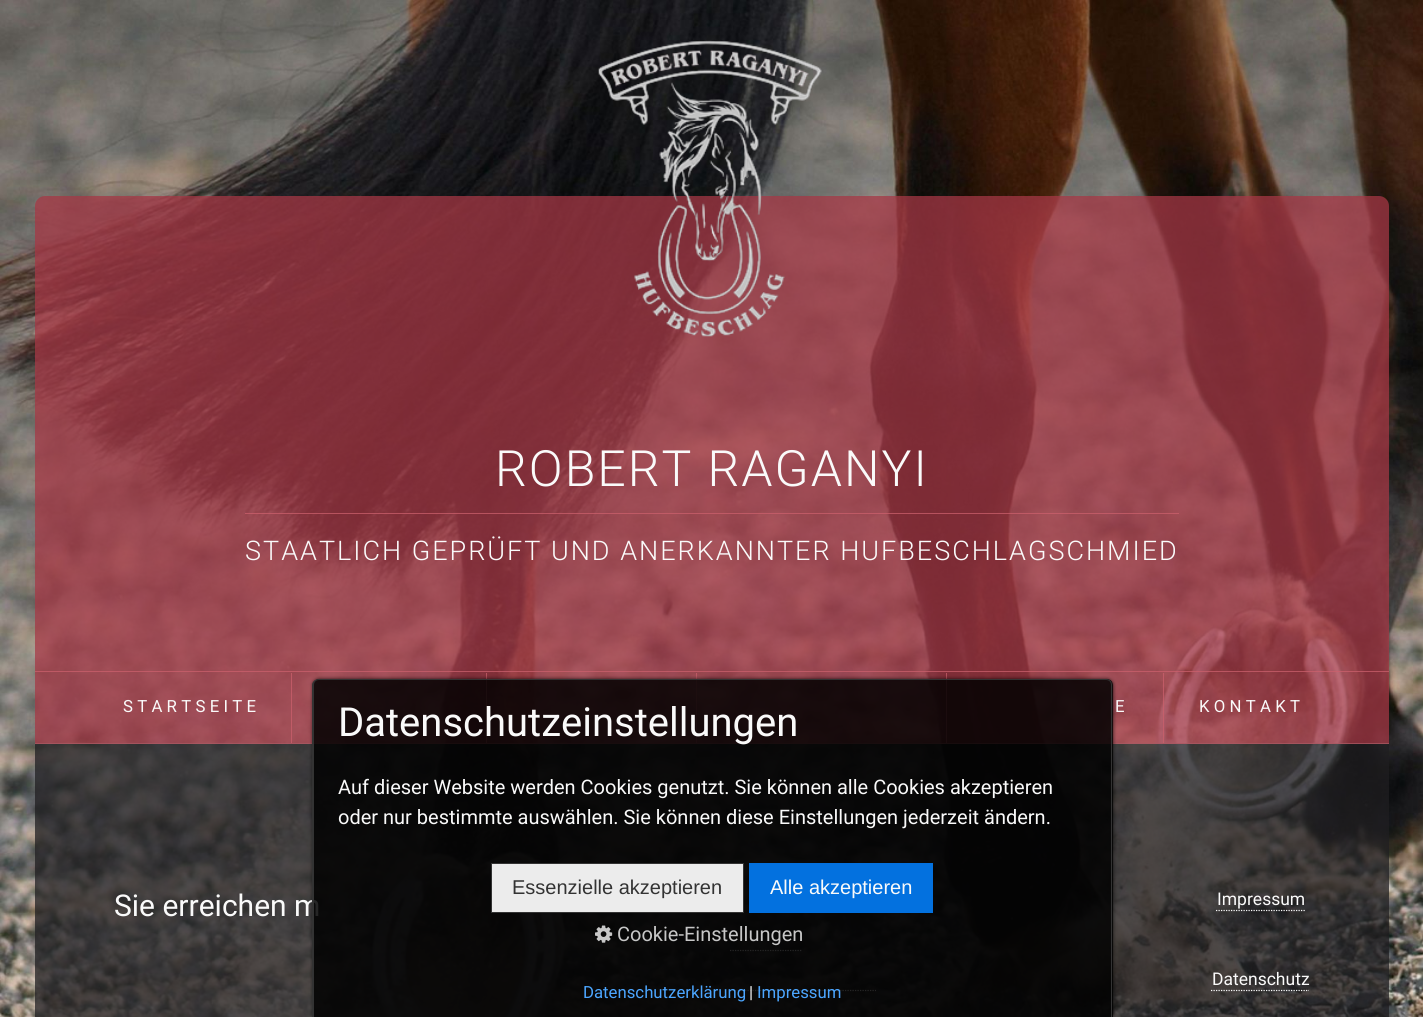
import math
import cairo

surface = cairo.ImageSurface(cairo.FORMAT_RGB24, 1423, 1017)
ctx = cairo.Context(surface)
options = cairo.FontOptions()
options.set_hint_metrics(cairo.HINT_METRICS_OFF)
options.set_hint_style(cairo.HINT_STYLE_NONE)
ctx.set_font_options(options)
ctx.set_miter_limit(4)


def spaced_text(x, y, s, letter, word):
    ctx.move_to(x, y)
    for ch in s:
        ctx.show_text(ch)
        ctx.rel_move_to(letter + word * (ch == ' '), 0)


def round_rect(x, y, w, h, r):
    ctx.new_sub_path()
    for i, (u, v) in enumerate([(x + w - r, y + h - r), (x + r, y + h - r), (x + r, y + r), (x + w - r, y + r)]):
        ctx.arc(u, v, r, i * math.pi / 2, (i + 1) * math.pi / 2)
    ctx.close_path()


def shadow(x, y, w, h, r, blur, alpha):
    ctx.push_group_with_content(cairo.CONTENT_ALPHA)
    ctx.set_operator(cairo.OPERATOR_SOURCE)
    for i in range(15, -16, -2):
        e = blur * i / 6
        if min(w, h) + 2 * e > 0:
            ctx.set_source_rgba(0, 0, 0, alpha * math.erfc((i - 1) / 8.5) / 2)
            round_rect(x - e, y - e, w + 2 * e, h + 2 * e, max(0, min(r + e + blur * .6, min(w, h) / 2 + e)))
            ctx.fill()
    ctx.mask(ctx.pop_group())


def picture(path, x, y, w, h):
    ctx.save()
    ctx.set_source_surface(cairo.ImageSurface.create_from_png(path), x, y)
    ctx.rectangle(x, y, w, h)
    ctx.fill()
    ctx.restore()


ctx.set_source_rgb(1, 1, 1)
ctx.paint()
picture("img1.png", 0, 0, 1423, 1017)
ctx.set_source_rgba(0.651, 0.22, 0.271, 0.74)
ctx.new_path()
ctx.move_to(45, 196)
ctx.line_to(1379, 196)
ctx.curve_to(1384.5, 196, 1389, 200.5, 1389, 206)
ctx.line_to(1389, 743)
ctx.line_to(35, 743)
ctx.line_to(35, 206)
ctx.curve_to(35, 200.5, 39.5, 196, 45, 196)
ctx.close_path()
ctx.fill()
picture("img2.png", 598, 40, 224, 297)
ctx.select_font_face("Roboto Light")
ctx.set_font_size(50)
ctx.set_source_rgb(0.98, 0.98, 0.98)
spaced_text(495, 486, "ROBERT RAGANYI", 2, 0)
ctx.set_source_rgba(0.792, 0.38, 0.427, 0.74)
ctx.rectangle(245, 513, 934, 1)
ctx.fill()
ctx.set_font_size(27)
ctx.set_source_rgb(0.98, 0.98, 0.98)
spaced_text(245, 560, "STAATLICH GEPRÜFT UND ANERKANNTER HUFBESCHLAGSCHMIED", 2, 0)
ctx.set_source_rgba(0.792, 0.38, 0.427, 0.74)
ctx.rectangle(35, 671, 1354, 1)
ctx.fill()
ctx.select_font_face("Roboto")
ctx.set_font_size(16.75)
ctx.set_source_rgb(0.98, 0.98, 0.98)
spaced_text(123, 712, "STARTSEITE", 4.25, 0)
ctx.set_source_rgba(0.792, 0.38, 0.427, 0.74)
ctx.rectangle(291, 673, 1, 70)
ctx.fill()
ctx.rectangle(486, 673, 1, 70)
ctx.fill()
ctx.rectangle(696, 673, 1, 70)
ctx.fill()
ctx.rectangle(946, 673, 1, 70)
ctx.fill()
ctx.set_source_rgb(0.98, 0.98, 0.98)
spaced_text(1115, 712, "E", 4.25, 0)
ctx.set_source_rgba(0.792, 0.38, 0.427, 0.74)
ctx.rectangle(1163, 673, 1, 70)
ctx.fill()
ctx.set_source_rgb(0.98, 0.98, 0.98)
spaced_text(1199, 712, "KONTAKT", 4.25, 0)
ctx.set_source_rgba(0.122, 0.118, 0.129, 0.74)
ctx.rectangle(35, 743, 1354, 274)
ctx.fill()
ctx.set_source_rgba(0.792, 0.38, 0.427, 0.74)
ctx.rectangle(35, 743, 1354, 1)
ctx.fill()
ctx.set_font_size(30)
ctx.set_source_rgb(0.98, 0.98, 0.98)
ctx.move_to(114, 916)
ctx.show_text("Sie erreichen m")
ctx.set_font_size(17.5)
ctx.move_to(1217, 905)
ctx.show_text("Impressum")
ctx.new_path()
ctx.move_to(1216, 910.5)
ctx.line_to(1305, 910.5)
ctx.set_line_width(1.2)
ctx.set_dash([1.25, 1.25])
ctx.stroke()
ctx.move_to(1212, 985)
ctx.show_text("Datenschutz")
ctx.new_path()
ctx.move_to(1211, 990.5)
ctx.line_to(1309, 990.5)
ctx.stroke()
ctx.new_path()
ctx.move_to(730, 950.5)
ctx.line_to(802.5, 950.5)
ctx.stroke()
ctx.new_path()
ctx.move_to(730, 990.5)
ctx.line_to(876, 990.5)
ctx.stroke()
ctx.save()
ctx.set_fill_rule(cairo.FILL_RULE_EVEN_ODD)
ctx.new_path()
ctx.move_to(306, 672)
ctx.line_to(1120, 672)
ctx.line_to(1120, 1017)
ctx.line_to(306, 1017)
ctx.close_path()
ctx.move_to(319, 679)
ctx.line_to(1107, 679)
ctx.curve_to(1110.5, 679, 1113, 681.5, 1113, 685)
ctx.line_to(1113, 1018)
ctx.line_to(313, 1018)
ctx.line_to(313, 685)
ctx.curve_to(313, 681.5, 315.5, 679, 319, 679)
ctx.close_path()
ctx.clip()
ctx.set_source_rgb(0, 0, 0)
shadow(313, 679, 800, 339, 6, 2, 0.8)
ctx.restore()
ctx.set_source_rgba(0, 0, 0, 0.85)
ctx.new_path()
ctx.move_to(319, 679)
ctx.line_to(1107, 679)
ctx.curve_to(1110.5, 679, 1113, 681.5, 1113, 685)
ctx.line_to(1113, 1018)
ctx.line_to(313, 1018)
ctx.line_to(313, 685)
ctx.curve_to(313, 681.5, 315.5, 679, 319, 679)
ctx.close_path()
ctx.fill()
ctx.set_source_rgb(0.2, 0.2, 0.2)
ctx.set_fill_rule(cairo.FILL_RULE_EVEN_ODD)
ctx.new_path()
ctx.move_to(319, 679)
ctx.line_to(1106, 679)
ctx.curve_to(1110, 679, 1112, 682, 1112, 685)
ctx.line_to(1112, 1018)
ctx.line_to(312, 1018)
ctx.line_to(312, 685)
ctx.curve_to(312, 682, 315, 679, 319, 679)
ctx.close_path()
ctx.move_to(319, 680)
ctx.line_to(1106, 680)
ctx.curve_to(1109, 680, 1111, 682, 1111, 685)
ctx.line_to(1111, 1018)
ctx.line_to(314, 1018)
ctx.line_to(314, 685)
ctx.curve_to(314, 682, 316, 680, 319, 680)
ctx.close_path()
ctx.fill()
ctx.set_font_size(40)
ctx.set_source_rgb(0.98, 0.98, 0.98)
ctx.move_to(338, 736)
ctx.show_text("Datenschutzeinstellungen")
ctx.set_font_size(20)
ctx.move_to(338, 794)
ctx.show_text("Auf dieser Website werden Cookies genutzt. Sie können alle Cookies akzeptieren")
ctx.move_to(338, 824)
ctx.show_text("oder nur bestimmte auswählen. Sie können diese Einstellungen jederzeit ändern.")
ctx.set_source_rgb(0.922, 0.922, 0.922)
ctx.rectangle(491.5, 863.5, 252, 49)
ctx.fill_preserve()
ctx.set_source_rgb(0.2, 0.2, 0.2)
ctx.set_line_width(1)
ctx.set_dash([])
ctx.stroke()
ctx.select_font_face("Liberation Sans")
ctx.move_to(512, 894)
ctx.show_text("Essenzielle akzeptieren")
ctx.set_source_rgb(0.012, 0.443, 0.875)
ctx.rectangle(749, 863, 184, 50)
ctx.fill()
ctx.set_source_rgb(0.98, 0.98, 0.98)
ctx.move_to(770, 894)
ctx.show_text("Alle akzeptieren")
picture("img3.png", 595, 925, 18, 18)
ctx.select_font_face("Roboto")
ctx.set_source_rgb(0.78, 0.78, 0.78)
ctx.move_to(617, 941)
ctx.show_text("Cookie-Einstellungen")
ctx.set_font_size(16.75)
ctx.set_source_rgb(0.298, 0.651, 1)
ctx.move_to(583, 998)
ctx.show_text("Datenschutzerklärung")
ctx.set_source_rgb(0.98, 0.98, 0.98)
ctx.move_to(749, 998)
ctx.show_text("|")
ctx.set_source_rgb(0.298, 0.651, 1)
ctx.move_to(757, 998)
ctx.show_text("Impressum")
surface.write_to_png("page.png")
